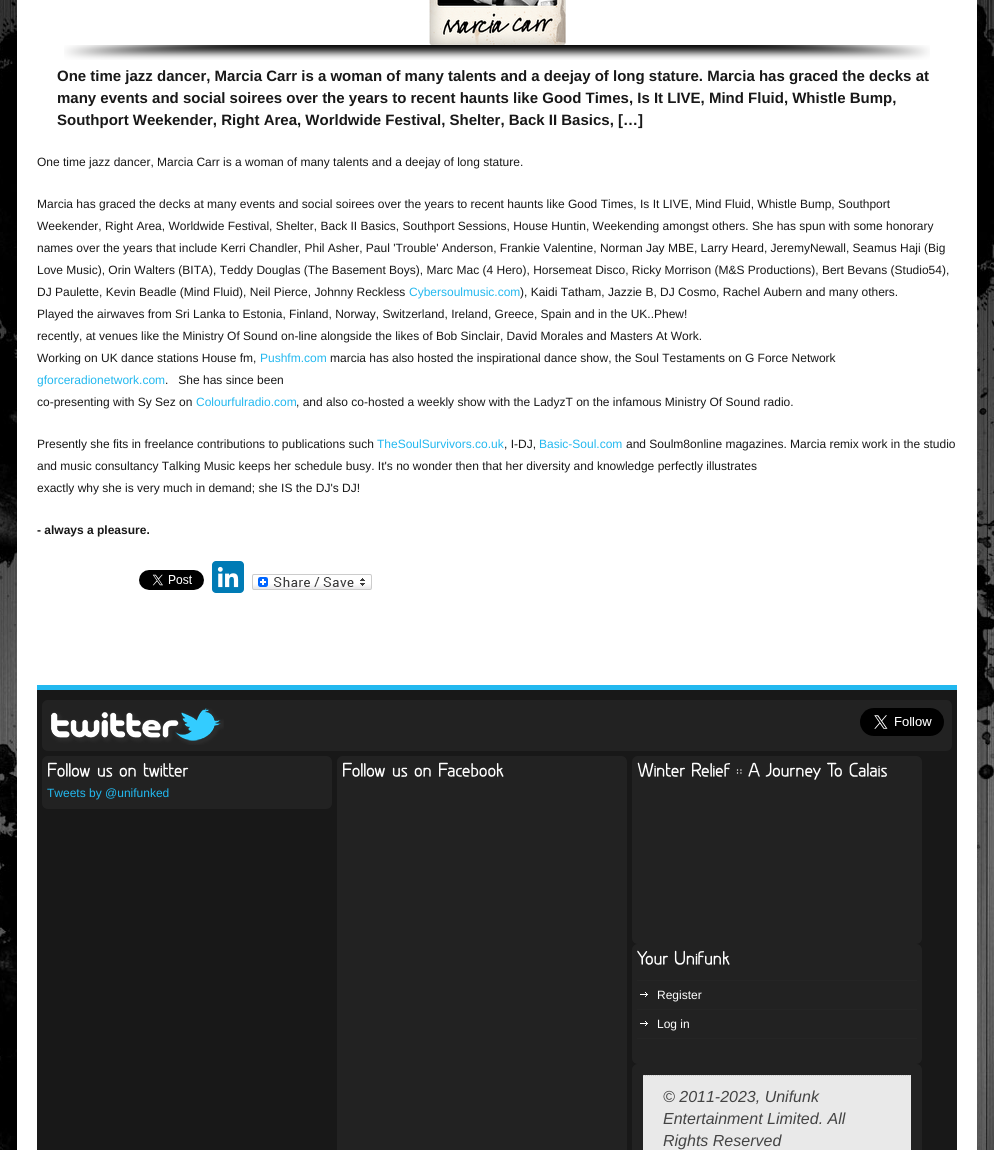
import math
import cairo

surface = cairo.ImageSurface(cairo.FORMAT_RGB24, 994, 1150)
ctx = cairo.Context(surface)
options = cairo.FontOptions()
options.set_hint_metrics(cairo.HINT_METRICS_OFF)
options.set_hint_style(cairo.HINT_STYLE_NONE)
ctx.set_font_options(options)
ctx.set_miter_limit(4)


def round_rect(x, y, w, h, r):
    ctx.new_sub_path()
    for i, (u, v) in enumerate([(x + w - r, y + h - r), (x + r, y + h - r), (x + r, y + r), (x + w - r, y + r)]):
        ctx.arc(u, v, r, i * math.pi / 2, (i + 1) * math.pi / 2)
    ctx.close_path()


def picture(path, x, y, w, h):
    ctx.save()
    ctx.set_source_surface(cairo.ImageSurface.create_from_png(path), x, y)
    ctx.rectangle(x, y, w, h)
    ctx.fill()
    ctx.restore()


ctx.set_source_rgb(1, 1, 1)
ctx.paint()
picture("img1.png", 0, 0, 994, 1150)
ctx.set_source_rgb(1, 1, 1)
ctx.rectangle(17, 0, 960, 1150)
ctx.fill()
picture("img2.png", 64, 45, 866, 15)
picture("img3.png", 429, 0, 137, 45)
ctx.select_font_face("Liberation Sans", cairo.FONT_SLANT_NORMAL, cairo.FONT_WEIGHT_BOLD)
ctx.set_font_size(15)
ctx.set_source_rgb(0.094, 0.094, 0.094)
ctx.move_to(57, 81)
ctx.show_text("One time jazz dancer, Marcia Carr is a woman of many talents and a deejay of long stature. Marcia has graced the decks at")
ctx.move_to(57, 103)
ctx.show_text("many events and social soirees over the years to recent haunts like Good Times, Is It LIVE, Mind Fluid, Whistle Bump,")
ctx.move_to(57, 125)
ctx.show_text("Southport Weekender, Right Area, Worldwide Festival, Shelter, Back II Basics, […]")
ctx.select_font_face("Liberation Sans")
ctx.set_font_size(12)
ctx.move_to(37, 166)
ctx.show_text("One time jazz dancer, Marcia Carr is a woman of many talents and a deejay of long stature.")
ctx.move_to(37, 208)
ctx.show_text("Marcia has graced the decks at many events and social soirees over the years to recent haunts like Good Times, Is It LIVE, Mind Fluid, Whistle Bump, Southport")
ctx.move_to(37, 230)
ctx.show_text("Weekender, Right Area, Worldwide Festival, Shelter, Back II Basics, Southport Sessions, House Huntin, Weekending amongst others. She has spun with some honorary")
ctx.move_to(37, 252)
ctx.show_text("names over the years that include Kerri Chandler, Phil Asher, Paul 'Trouble' Anderson, Frankie Valentine, Norman Jay MBE, Larry Heard, JeremyNewall, Seamus Haji (Big")
ctx.move_to(37, 274)
ctx.show_text("Love Music), Orin Walters (BITA), Teddy Douglas (The Basement Boys), Marc Mac (4 Hero), Horsemeat Disco, Ricky Morrison (M&S Productions), Bert Bevans (Studio54),")
ctx.move_to(37, 296)
ctx.show_text("DJ Paulette, Kevin Beadle (Mind Fluid), Neil Pierce, Johnny Reckless")
ctx.set_source_rgb(0.133, 0.722, 0.937)
ctx.move_to(409, 296)
ctx.show_text("Cybersoulmusic.com")
ctx.set_source_rgb(0.094, 0.094, 0.094)
ctx.move_to(520, 296)
ctx.show_text("), Kaidi Tatham, Jazzie B, DJ Cosmo, Rachel Aubern and many others.")
ctx.move_to(37, 318)
ctx.show_text("Played the airwaves from Sri Lanka to Estonia, Finland, Norway, Switzerland, Ireland, Greece, Spain and in the UK..Phew!")
ctx.move_to(37, 340)
ctx.show_text("recently, at venues like the Ministry Of Sound on-line alongside the likes of Bob Sinclair, David Morales and Masters At Work.")
ctx.move_to(37, 362)
ctx.show_text("Working on UK dance stations House fm,")
ctx.set_source_rgb(0.133, 0.722, 0.937)
ctx.move_to(260, 362)
ctx.show_text("Pushfm.com")
ctx.set_source_rgb(0.094, 0.094, 0.094)
ctx.move_to(330, 362)
ctx.show_text("marcia has also hosted the inspirational dance show, the Soul Testaments on G Force Network")
ctx.set_source_rgb(0.133, 0.722, 0.937)
ctx.move_to(37, 384)
ctx.show_text("gforceradionetwork.com")
ctx.set_source_rgb(0.094, 0.094, 0.094)
ctx.move_to(165, 384)
ctx.show_text(".   She has since been")
ctx.move_to(37, 406)
ctx.show_text("co-presenting with Sy Sez on")
ctx.set_source_rgb(0.133, 0.722, 0.937)
ctx.move_to(196, 406)
ctx.show_text("Colourfulradio.com")
ctx.set_source_rgb(0.094, 0.094, 0.094)
ctx.move_to(296, 406)
ctx.show_text(", and also co-hosted a weekly show with the LadyzT on the infamous Ministry Of Sound radio.")
ctx.move_to(37, 448)
ctx.show_text("Presently she fits in freelance contributions to publications such")
ctx.set_source_rgb(0.133, 0.722, 0.937)
ctx.move_to(377, 448)
ctx.show_text("TheSoulSurvivors.co.uk")
ctx.set_source_rgb(0.094, 0.094, 0.094)
ctx.move_to(504, 448)
ctx.show_text(", I-DJ,")
ctx.set_source_rgb(0.133, 0.722, 0.937)
ctx.move_to(539, 448)
ctx.show_text("Basic-Soul.com")
ctx.set_source_rgb(0.094, 0.094, 0.094)
ctx.move_to(626, 448)
ctx.show_text("and Soulm8online magazines. Marcia remix work in the studio")
ctx.move_to(37, 470)
ctx.show_text("and music consultancy Talking Music keeps her schedule busy. It's no wonder then that her diversity and knowledge perfectly illustrates")
ctx.move_to(37, 492)
ctx.show_text("exactly why she is very much in demand; she IS the DJ's DJ!")
ctx.select_font_face("Liberation Sans", cairo.FONT_SLANT_NORMAL, cairo.FONT_WEIGHT_BOLD)
ctx.move_to(37, 534)
ctx.show_text("- always a pleasure.")
picture("img4.png", 139, 570, 65, 20)
ctx.set_source_rgb(0, 0.482, 0.71)
round_rect(212, 561, 32, 32, 4)
ctx.fill()
picture("img5.png", 217, 566, 22, 22)
picture("img6.png", 252, 574, 120, 16)
ctx.set_source_rgb(0.094, 0.094, 0.094)
ctx.rectangle(37, 690, 920, 460)
ctx.fill()
ctx.set_source_rgb(0.133, 0.722, 0.937)
ctx.rectangle(37, 685, 920, 5)
ctx.fill()
ctx.set_source_rgb(0.133, 0.133, 0.133)
round_rect(42, 700, 910, 51, 6)
ctx.fill()
picture("img7.png", 51, 708, 173, 37)
picture("img8.png", 860, 708, 84, 28)
round_rect(42, 756, 290, 53, 6)
ctx.fill()
picture("img9.png", 48, 762, 42, 15)
picture("img10.png", 97, 767, 16, 10)
picture("img11.png", 119, 767, 17, 10)
picture("img12.png", 143, 763, 46, 14)
ctx.select_font_face("Liberation Sans")
ctx.set_source_rgb(0.133, 0.722, 0.937)
ctx.move_to(47, 797)
ctx.show_text("Tweets by @unifunked")
ctx.set_source_rgb(0.133, 0.133, 0.133)
round_rect(337, 756, 290, 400, 6)
ctx.fill()
picture("img9.png", 343, 762, 42, 15)
picture("img10.png", 392, 767, 16, 10)
picture("img11.png", 414, 767, 17, 10)
picture("img13.png", 439, 762, 65, 15)
round_rect(632, 756, 290, 188, 6)
ctx.fill()
picture("img14.png", 637, 762, 48, 15)
picture("img15.png", 692, 762, 39, 15)
picture("img16.png", 736, 769, 6, 5)
picture("img17.png", 748, 762, 12, 15)
picture("img18.png", 765, 762, 56, 18)
picture("img19.png", 827, 762, 15, 15)
picture("img20.png", 849, 762, 38, 15)
round_rect(632, 944, 290, 120, 6)
ctx.fill()
picture("img21.png", 637, 950, 31, 15)
picture("img22.png", 674, 950, 56, 15)
ctx.set_source_rgb(0.145, 0.145, 0.145)
ctx.rectangle(637, 980, 280, 1)
ctx.fill()
ctx.rectangle(637, 1009, 280, 1)
ctx.fill()
picture("img23.png", 640, 992, 8, 5)
ctx.set_source_rgb(1, 1, 1)
ctx.move_to(657, 999)
ctx.show_text("Register")
ctx.set_source_rgb(0.145, 0.145, 0.145)
ctx.rectangle(637, 1038, 280, 1)
ctx.fill()
picture("img23.png", 640, 1021, 8, 5)
ctx.set_source_rgb(1, 1, 1)
ctx.move_to(657, 1028)
ctx.show_text("Log in")
ctx.set_source_rgb(0.133, 0.133, 0.133)
round_rect(632, 1064, 290, 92, 6)
ctx.fill()
ctx.set_source_rgb(0.914, 0.914, 0.914)
ctx.rectangle(643, 1075, 268, 75)
ctx.fill()
ctx.new_path()
ctx.move_to(643, 1075.5)
ctx.line_to(911, 1075.5)
ctx.set_source_rgb(0.8, 0.8, 0.8)
ctx.set_line_width(1)
ctx.set_dash([1, 1])
ctx.stroke()
ctx.select_font_face("Liberation Sans", cairo.FONT_SLANT_ITALIC)
ctx.set_font_size(16)
ctx.set_source_rgb(0.267, 0.267, 0.267)
ctx.move_to(663, 1102)
ctx.show_text("© 2011-2023, Unifunk")
ctx.move_to(663, 1124)
ctx.show_text("Entertainment Limited. All")
ctx.move_to(663, 1146)
ctx.show_text("Rights Reserved")
surface.write_to_png("page.png")
